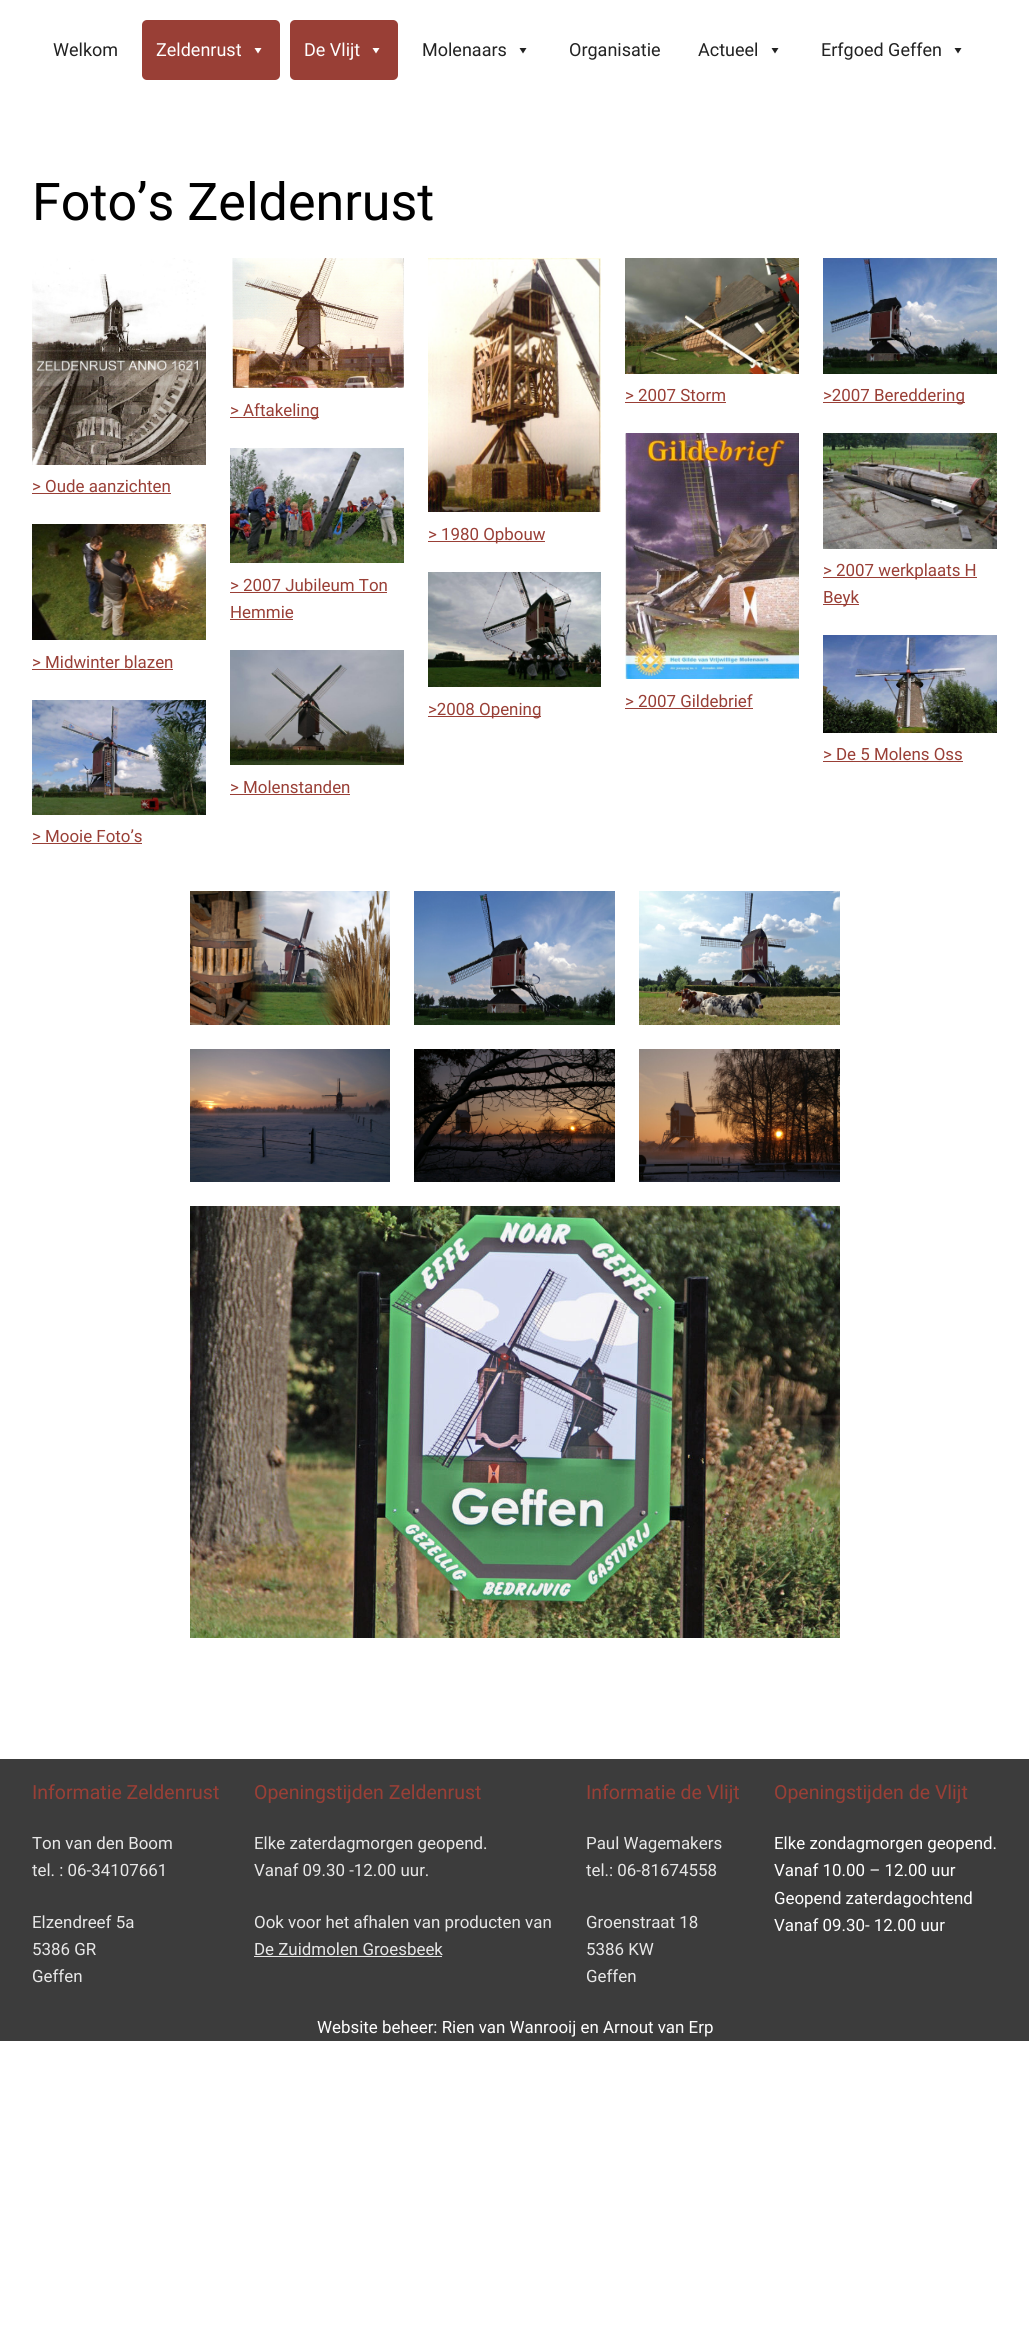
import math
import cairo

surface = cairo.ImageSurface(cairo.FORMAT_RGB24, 1029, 2334)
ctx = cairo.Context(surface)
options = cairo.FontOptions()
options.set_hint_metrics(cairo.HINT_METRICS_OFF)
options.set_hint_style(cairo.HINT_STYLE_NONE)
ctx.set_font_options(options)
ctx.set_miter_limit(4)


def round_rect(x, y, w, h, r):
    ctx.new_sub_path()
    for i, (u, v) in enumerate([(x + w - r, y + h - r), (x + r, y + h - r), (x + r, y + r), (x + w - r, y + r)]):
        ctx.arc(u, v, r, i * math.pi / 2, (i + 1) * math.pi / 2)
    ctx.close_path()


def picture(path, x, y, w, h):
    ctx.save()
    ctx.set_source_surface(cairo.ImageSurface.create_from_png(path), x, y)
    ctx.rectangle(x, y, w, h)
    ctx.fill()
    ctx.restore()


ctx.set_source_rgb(1, 1, 1)
ctx.paint()
ctx.select_font_face("Roboto")
ctx.set_font_size(18)
ctx.set_source_rgb(0.133, 0.133, 0.133)
ctx.move_to(53, 56)
ctx.show_text("Welkom")
ctx.set_source_rgb(0.6, 0.247, 0.212)
round_rect(142, 20, 138, 60, 5)
ctx.fill()
ctx.set_source_rgb(1, 1, 1)
ctx.move_to(156, 56)
ctx.show_text("Zeldenrust")
ctx.new_path()
ctx.move_to(261.5, 48)
ctx.line_to(258, 53.5)
ctx.line_to(254.5, 48)
ctx.close_path()
ctx.fill()
ctx.set_source_rgb(0.6, 0.247, 0.212)
round_rect(290, 20, 108, 60, 5)
ctx.fill()
ctx.set_source_rgb(1, 1, 1)
ctx.move_to(304, 56)
ctx.show_text("De Vlijt")
ctx.new_path()
ctx.move_to(379.5, 48)
ctx.line_to(376, 53.5)
ctx.line_to(372.5, 48)
ctx.close_path()
ctx.fill()
ctx.set_source_rgb(0.133, 0.133, 0.133)
ctx.move_to(422, 56)
ctx.show_text("Molenaars")
ctx.new_path()
ctx.move_to(526.5, 48)
ctx.line_to(523, 53.5)
ctx.line_to(519.5, 48)
ctx.close_path()
ctx.fill()
ctx.move_to(569, 56)
ctx.show_text("Organisatie")
ctx.move_to(698, 56)
ctx.show_text("Actueel")
ctx.new_path()
ctx.move_to(778.5, 48)
ctx.line_to(775, 53.5)
ctx.line_to(771.5, 48)
ctx.close_path()
ctx.fill()
ctx.move_to(821, 56)
ctx.show_text("Erfgoed Geffen")
ctx.new_path()
ctx.move_to(961.5, 48)
ctx.line_to(958, 53.5)
ctx.line_to(954.5, 48)
ctx.close_path()
ctx.fill()
ctx.set_font_size(52)
ctx.set_source_rgb(0, 0, 0)
ctx.move_to(32, 220)
ctx.show_text("Foto’s Zeldenrust")
picture("img1.png", 32, 258, 174, 207)
ctx.set_font_size(16.9)
ctx.set_source_rgb(0.6, 0.247, 0.212)
ctx.move_to(32, 492)
ctx.show_text("> Oude aanzichten")
ctx.rectangle(32, 493, 139, 1)
ctx.fill()
picture("img2.png", 32, 524, 174, 116)
ctx.move_to(32, 668)
ctx.show_text("> Midwinter blazen")
ctx.rectangle(32, 669, 141, 1)
ctx.fill()
picture("img3.png", 32, 700, 174, 115)
ctx.move_to(32, 842)
ctx.show_text("> Mooie Foto’s")
ctx.rectangle(32, 843, 110, 1)
ctx.fill()
picture("img4.png", 232, 258, 172, 130)
ctx.rectangle(230, 417, 89, 1)
ctx.fill()
ctx.move_to(230, 416)
ctx.show_text("> Aftakeling")
picture("img5.png", 230, 448, 174, 115)
ctx.move_to(230, 591)
ctx.show_text("> 2007 Jubileum Ton")
ctx.rectangle(230, 592, 157, 1)
ctx.fill()
ctx.move_to(230, 618)
ctx.show_text("Hemmie")
ctx.rectangle(230, 619, 63, 1)
ctx.fill()
picture("img6.png", 230, 650, 174, 115)
ctx.move_to(230, 793)
ctx.show_text("> Molenstanden")
ctx.rectangle(230, 794, 120, 1)
ctx.fill()
picture("img7.png", 428, 258, 173, 254)
ctx.rectangle(428, 541, 117, 1)
ctx.fill()
ctx.move_to(428, 540)
ctx.show_text("> 1980 Opbouw")
picture("img8.png", 428, 572, 173, 115)
ctx.rectangle(428, 716, 113, 1)
ctx.fill()
ctx.move_to(428, 715)
ctx.show_text(">2008 Opening")
picture("img9.png", 625, 258, 174, 116)
ctx.move_to(625, 401)
ctx.show_text("> 2007 Storm")
ctx.rectangle(625, 402, 101, 1)
ctx.fill()
picture("img10.png", 625, 433, 174, 246)
ctx.move_to(625, 707)
ctx.show_text("> 2007 Gildebrief")
ctx.rectangle(625, 708, 128, 1)
ctx.fill()
picture("img11.png", 823, 258, 174, 116)
ctx.rectangle(823, 402, 142, 1)
ctx.fill()
ctx.move_to(823, 401)
ctx.show_text(">2007 Bereddering")
picture("img12.png", 823, 433, 174, 116)
ctx.rectangle(823, 577, 154, 1)
ctx.fill()
ctx.move_to(823, 576)
ctx.show_text("> 2007 werkplaats H")
ctx.rectangle(823, 604, 36, 1)
ctx.fill()
ctx.move_to(823, 603)
ctx.show_text("Beyk")
picture("img13.png", 823, 635, 174, 98)
ctx.move_to(823, 760)
ctx.show_text("> De 5 Molens Oss")
ctx.rectangle(823, 761, 140, 1)
ctx.fill()
picture("img14.png", 190, 891, 200, 134)
picture("img15.png", 414, 891, 201, 134)
picture("img16.png", 639, 891, 201, 134)
picture("img17.png", 190, 1049, 200, 133)
picture("img18.png", 414, 1049, 201, 133)
picture("img19.png", 639, 1049, 201, 133)
picture("img20.png", 190, 1206, 650, 432)
ctx.set_source_rgb(0.235, 0.235, 0.235)
ctx.rectangle(0, 1759, 1029, 282)
ctx.fill()
ctx.set_font_size(19.5)
ctx.set_source_rgb(0.6, 0.247, 0.212)
ctx.move_to(32, 1799)
ctx.show_text("Informatie Zeldenrust")
ctx.set_font_size(16.9)
ctx.set_source_rgb(0.906, 0.906, 0.906)
ctx.move_to(32, 1849)
ctx.show_text("Ton van den Boom")
ctx.move_to(32, 1876)
ctx.show_text("tel. : 06-34107661")
ctx.move_to(32, 1928)
ctx.show_text("Elzendreef 5a")
ctx.move_to(32, 1955)
ctx.show_text("5386 GR")
ctx.move_to(32, 1982)
ctx.show_text("Geffen")
ctx.set_font_size(19.5)
ctx.set_source_rgb(0.6, 0.247, 0.212)
ctx.move_to(254, 1799)
ctx.show_text("Openingstijden Zeldenrust")
ctx.set_font_size(16.9)
ctx.set_source_rgb(0.906, 0.906, 0.906)
ctx.move_to(254, 1849)
ctx.show_text("Elke zaterdagmorgen geopend.")
ctx.move_to(254, 1876)
ctx.show_text("Vanaf 09.30 -12.00 uur.")
ctx.move_to(254, 1928)
ctx.show_text("Ook voor het afhalen van producten van")
ctx.move_to(254, 1955)
ctx.show_text("De Zuidmolen Groesbeek")
ctx.rectangle(254, 1956, 188, 1)
ctx.fill()
ctx.set_font_size(19.5)
ctx.set_source_rgb(0.6, 0.247, 0.212)
ctx.move_to(586, 1799)
ctx.show_text("Informatie de Vlijt")
ctx.set_font_size(16.9)
ctx.set_source_rgb(0.906, 0.906, 0.906)
ctx.move_to(586, 1849)
ctx.show_text("Paul Wagemakers")
ctx.move_to(586, 1876)
ctx.show_text("tel.: 06-81674558")
ctx.move_to(586, 1928)
ctx.show_text("Groenstraat 18")
ctx.move_to(586, 1955)
ctx.show_text("5386 KW")
ctx.move_to(586, 1982)
ctx.show_text("Geffen")
ctx.set_font_size(19.5)
ctx.set_source_rgb(0.6, 0.247, 0.212)
ctx.move_to(774, 1799)
ctx.show_text("Openingstijden de Vlijt")
ctx.set_font_size(16.9)
ctx.set_source_rgb(1, 1, 1)
ctx.move_to(774, 1849)
ctx.show_text("Elke zondagmorgen geopend.")
ctx.move_to(774, 1876)
ctx.show_text("Vanaf 10.00 – 12.00 uur")
ctx.move_to(774, 1904)
ctx.show_text("Geopend zaterdagochtend")
ctx.move_to(774, 1931)
ctx.show_text("Vanaf 09.30- 12.00 uur")
ctx.move_to(317, 2033)
ctx.show_text("Website beheer: Rien van Wanrooij en Arnout van Erp")
surface.write_to_png("page.png")
